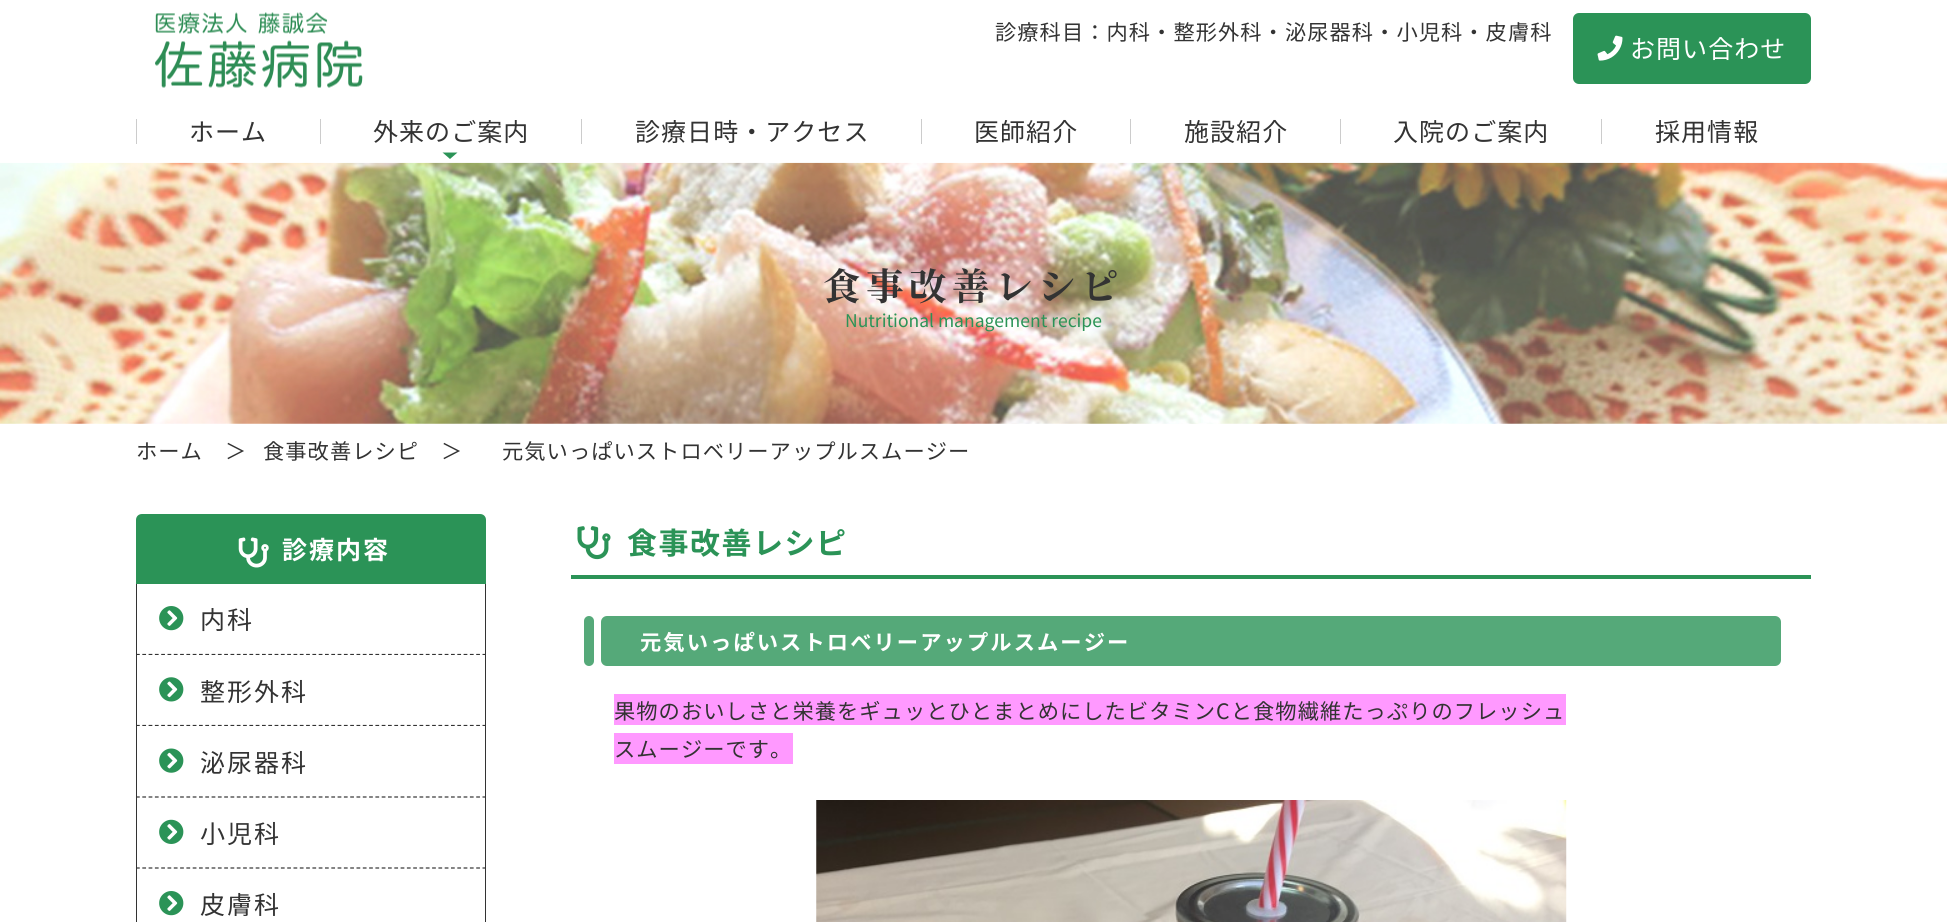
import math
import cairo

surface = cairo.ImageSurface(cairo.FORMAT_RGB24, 1947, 922)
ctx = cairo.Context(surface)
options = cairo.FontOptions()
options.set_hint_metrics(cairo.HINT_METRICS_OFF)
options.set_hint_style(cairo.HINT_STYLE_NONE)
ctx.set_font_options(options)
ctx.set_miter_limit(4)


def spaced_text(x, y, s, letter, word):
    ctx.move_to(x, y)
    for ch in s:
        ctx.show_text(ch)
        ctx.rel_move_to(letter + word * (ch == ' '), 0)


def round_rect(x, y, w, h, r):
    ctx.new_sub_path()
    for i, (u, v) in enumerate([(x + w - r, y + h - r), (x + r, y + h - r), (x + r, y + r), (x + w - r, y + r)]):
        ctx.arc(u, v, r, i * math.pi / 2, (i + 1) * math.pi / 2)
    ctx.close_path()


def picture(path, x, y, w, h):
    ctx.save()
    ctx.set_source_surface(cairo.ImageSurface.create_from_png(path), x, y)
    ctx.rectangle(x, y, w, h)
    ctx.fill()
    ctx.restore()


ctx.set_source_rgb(1, 1, 1)
ctx.paint()
picture("img3.png", 0, 162, 1947, 262)
ctx.set_source_rgba(1, 1, 1, 0.9)
ctx.rectangle(0, 162, 1947, 1)
ctx.fill()
picture("img1.png", 155, 12, 208, 76)
ctx.select_font_face("Noto Sans JP")
ctx.set_font_size(21.25)
ctx.set_source_rgb(0.2, 0.2, 0.2)
spaced_text(995, 40, "診療科目：内科・整形外科・泌尿器科・小児科・皮膚科", 1.05, 0)
ctx.set_source_rgb(0.169, 0.576, 0.341)
round_rect(1573, 13, 238, 71, 6)
ctx.fill()
picture("img2.png", 1597, 35, 26, 26)
ctx.set_font_size(25)
ctx.set_source_rgb(1, 1, 1)
spaced_text(1630, 58, "お問い合わせ", 1.05, 0)
ctx.set_source_rgb(0.8, 0.8, 0.8)
ctx.rectangle(136, 119, 1, 25)
ctx.fill()
ctx.set_source_rgb(0.2, 0.2, 0.2)
spaced_text(189, 141, "ホーム", 1.05, 0)
ctx.set_source_rgb(0.8, 0.8, 0.8)
ctx.rectangle(320, 119, 1, 25)
ctx.fill()
ctx.set_source_rgb(0.2, 0.2, 0.2)
spaced_text(373, 141, "外来のご案内", 1.05, 0)
ctx.set_source_rgb(0.169, 0.576, 0.341)
ctx.new_path()
ctx.move_to(442.5, 152.5)
ctx.line_to(457.5, 152.5)
ctx.line_to(450, 159)
ctx.close_path()
ctx.fill()
ctx.set_source_rgb(0.8, 0.8, 0.8)
ctx.rectangle(581, 119, 1, 25)
ctx.fill()
ctx.set_source_rgb(0.2, 0.2, 0.2)
spaced_text(635, 141, "診療日時・アクセス", 1.05, 0)
ctx.set_source_rgb(0.8, 0.8, 0.8)
ctx.rectangle(921, 119, 1, 25)
ctx.fill()
ctx.set_source_rgb(0.2, 0.2, 0.2)
spaced_text(974, 141, "医師紹介", 1.05, 0)
ctx.set_source_rgb(0.8, 0.8, 0.8)
ctx.rectangle(1130, 119, 1, 25)
ctx.fill()
ctx.set_source_rgb(0.2, 0.2, 0.2)
spaced_text(1184, 141, "施設紹介", 1.05, 0)
ctx.set_source_rgb(0.8, 0.8, 0.8)
ctx.rectangle(1340, 119, 1, 25)
ctx.fill()
ctx.set_source_rgb(0.2, 0.2, 0.2)
spaced_text(1393, 141, "入院のご案内", 1.05, 0)
ctx.set_source_rgb(0.8, 0.8, 0.8)
ctx.rectangle(1601, 119, 1, 25)
ctx.fill()
ctx.set_source_rgb(0.2, 0.2, 0.2)
spaced_text(1655, 141, "採用情報", 1.05, 0)
ctx.select_font_face("Noto Serif JP", cairo.FONT_SLANT_NORMAL, cairo.FONT_WEIGHT_BOLD)
ctx.set_font_size(37.5)
spaced_text(823, 300, "食事改善レシピ", 5.5, 0)
ctx.select_font_face("Noto Sans JP")
ctx.set_font_size(17.5)
ctx.set_source_rgb(0.169, 0.576, 0.341)
ctx.move_to(845, 327)
ctx.show_text("Nutritional management recipe")
ctx.set_font_size(21.25)
ctx.set_source_rgb(0.2, 0.2, 0.2)
spaced_text(136, 459, "ホーム", 1.05, 0)
spaced_text(225, 459, "＞", 1.05, 0)
spaced_text(263, 459, "食事改善レシピ", 1.05, 0)
spaced_text(441, 459, "＞", 1.05, 0)
spaced_text(502, 459, "元気いっぱいストロベリーアップルスムージー", 1.05, 0)
ctx.set_source_rgb(0.169, 0.576, 0.341)
ctx.new_path()
ctx.move_to(142, 514)
ctx.line_to(480, 514)
ctx.curve_to(483.5, 514, 486, 516.5, 486, 520)
ctx.line_to(486, 584)
ctx.line_to(136, 584)
ctx.line_to(136, 520)
ctx.curve_to(136, 516.5, 138.5, 514, 142, 514)
ctx.close_path()
ctx.fill()
picture("img4.png", 238, 537, 31, 31)
ctx.select_font_face("Noto Sans JP", cairo.FONT_SLANT_NORMAL, cairo.FONT_WEIGHT_BOLD)
ctx.set_font_size(25)
ctx.set_source_rgb(1, 1, 1)
spaced_text(282, 559, "診療内容", 2, 0)
ctx.set_source_rgb(0.2, 0.2, 0.2)
ctx.rectangle(485, 584, 1, 71)
ctx.fill()
ctx.new_path()
ctx.move_to(136, 654.5)
ctx.line_to(486, 654.5)
ctx.set_line_width(1.2)
ctx.set_dash([3.75, 2.55])
ctx.stroke()
ctx.rectangle(136, 584, 1, 71)
ctx.fill()
picture("img5.png", 159, 606, 25, 25)
ctx.select_font_face("Noto Sans JP")
spaced_text(200, 629, "内科", 2, 0)
ctx.set_source_rgb(1, 1, 1)
ctx.rectangle(137, 655, 348, 1)
ctx.fill()
ctx.set_source_rgb(0.2, 0.2, 0.2)
ctx.rectangle(485, 655, 1, 71)
ctx.fill()
ctx.new_path()
ctx.move_to(136, 725.5)
ctx.line_to(486, 725.5)
ctx.stroke()
ctx.rectangle(136, 655, 1, 71)
ctx.fill()
picture("img6.png", 159, 677, 25, 25)
spaced_text(200, 701, "整形外科", 2, 0)
ctx.set_source_rgb(1, 1, 1)
ctx.rectangle(137, 726, 348, 1)
ctx.fill()
ctx.set_source_rgb(0.2, 0.2, 0.2)
ctx.rectangle(485, 726, 1, 196)
ctx.fill()
ctx.new_path()
ctx.move_to(136, 797)
ctx.line_to(486, 797)
ctx.stroke()
ctx.rectangle(136, 726, 1, 72)
ctx.fill()
picture("img7.png", 159, 748, 25, 25)
spaced_text(200, 772, "泌尿器科", 2, 0)
ctx.new_path()
ctx.move_to(136, 868)
ctx.line_to(486, 868)
ctx.stroke()
ctx.rectangle(136, 798, 1, 124)
ctx.fill()
picture("img8.png", 159, 819, 25, 25)
spaced_text(200, 843, "小児科", 2, 0)
picture("img5.png", 159, 891, 25, 25)
spaced_text(200, 914, "皮膚科", 2, 0)
ctx.set_source_rgb(0.169, 0.576, 0.341)
ctx.rectangle(571, 575, 1240, 4)
ctx.fill()
picture("img9.png", 577, 526, 34, 34)
ctx.select_font_face("Noto Sans JP", cairo.FONT_SLANT_NORMAL, cairo.FONT_WEIGHT_BOLD)
ctx.set_font_size(30)
spaced_text(627, 554, "食事改善レシピ", 1.5, 0)
ctx.set_source_rgb(0.333, 0.663, 0.475)
round_rect(601, 616, 1180, 50, 6)
ctx.fill()
round_rect(584, 616, 10, 50, 5)
ctx.fill()
ctx.set_font_size(21.25)
ctx.set_source_rgb(1, 1, 1)
spaced_text(640, 650, "元気いっぱいストロベリーアップルスムージー", 2.1, 0)
ctx.set_source_rgb(1, 0.6, 1)
ctx.rectangle(614, 694, 952, 31)
ctx.fill()
ctx.select_font_face("Noto Sans JP")
ctx.set_source_rgb(0.2, 0.2, 0.2)
spaced_text(614, 719, "果物のおいしさと栄養をギュッとひとまとめにしたビタミンCと食物繊維たっぷりのフレッシュ", 1.05, 0)
ctx.set_source_rgb(1, 0.6, 1)
ctx.rectangle(614, 733, 179, 31)
ctx.fill()
ctx.set_source_rgb(0.2, 0.2, 0.2)
spaced_text(614, 757, "スムージーです。", 1.05, 0)
picture("img10.png", 816, 800, 751, 122)
surface.write_to_png("page.png")
